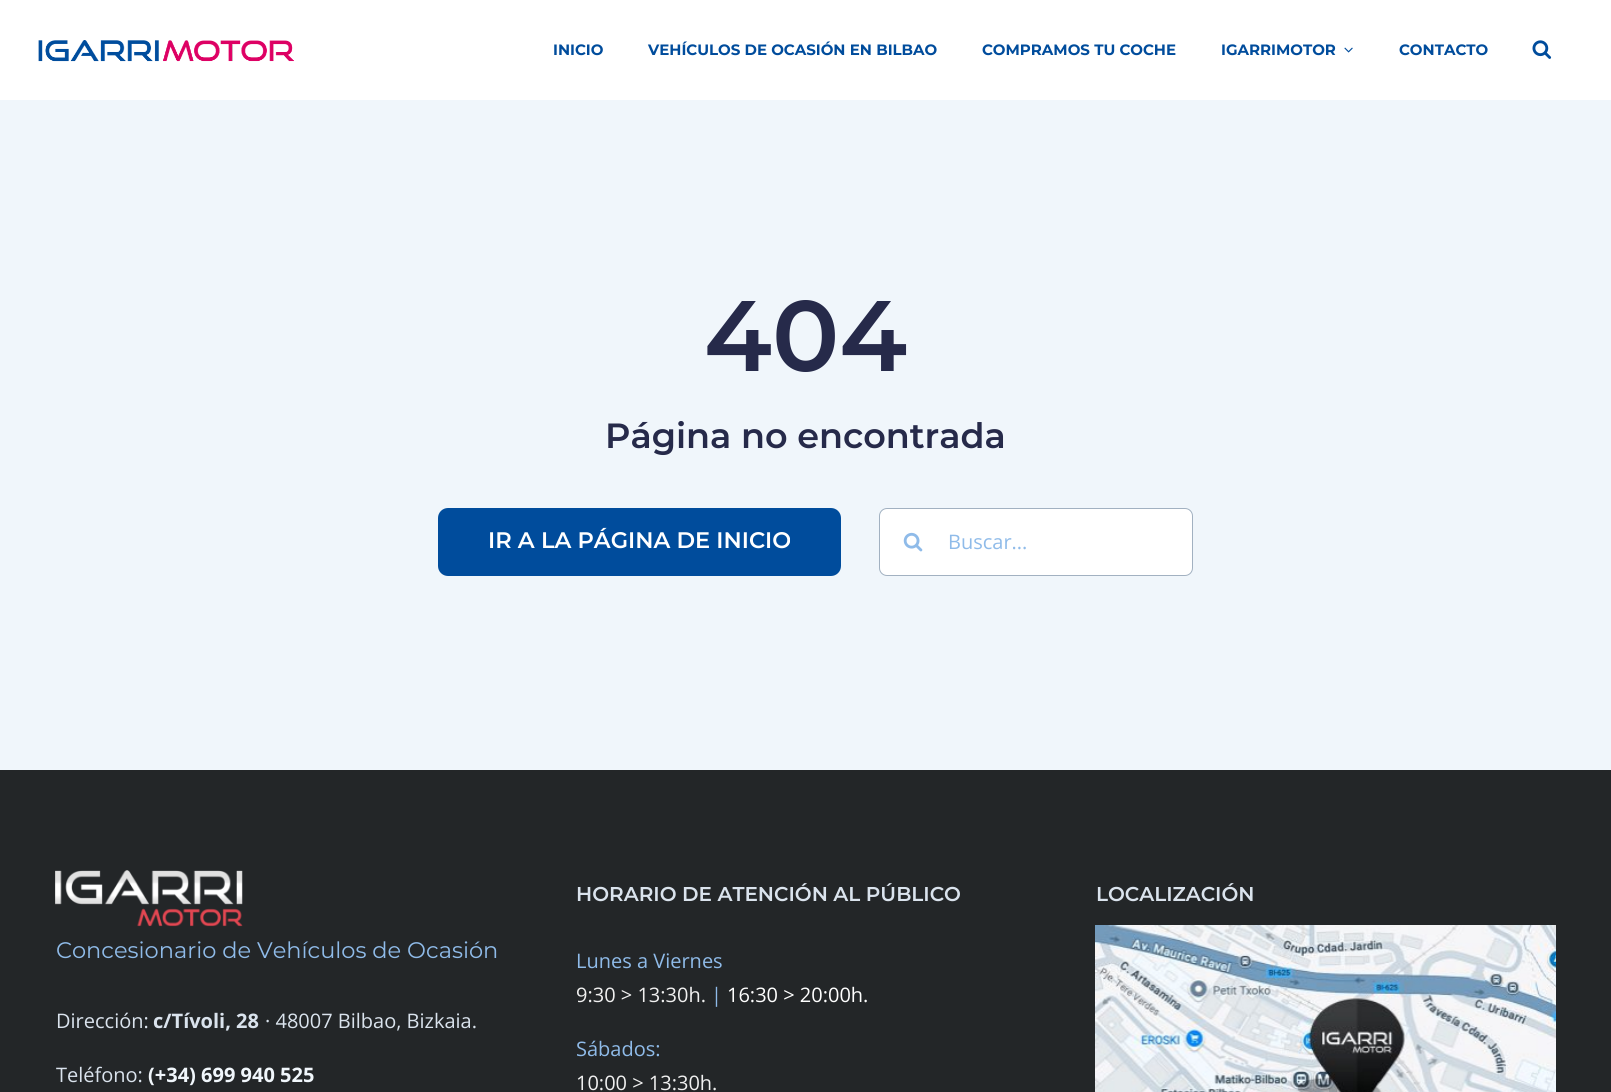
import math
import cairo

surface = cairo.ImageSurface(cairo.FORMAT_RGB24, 1611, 1092)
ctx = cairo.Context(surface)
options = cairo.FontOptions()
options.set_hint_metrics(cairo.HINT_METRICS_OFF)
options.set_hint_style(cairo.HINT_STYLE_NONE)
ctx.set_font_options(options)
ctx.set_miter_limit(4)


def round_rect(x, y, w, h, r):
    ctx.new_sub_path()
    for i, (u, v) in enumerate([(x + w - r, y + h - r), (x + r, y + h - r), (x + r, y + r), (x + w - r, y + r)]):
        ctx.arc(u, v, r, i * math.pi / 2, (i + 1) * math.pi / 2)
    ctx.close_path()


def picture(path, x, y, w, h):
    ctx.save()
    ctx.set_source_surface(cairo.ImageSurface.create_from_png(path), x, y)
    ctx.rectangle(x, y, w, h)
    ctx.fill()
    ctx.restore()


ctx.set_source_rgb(1, 1, 1)
ctx.paint()
picture("img1.png", 38, 40, 256, 22)
ctx.select_font_face("Montserrat", cairo.FONT_SLANT_NORMAL, cairo.FONT_WEIGHT_BOLD)
ctx.set_font_size(15)
ctx.set_source_rgb(0, 0.298, 0.612)
ctx.move_to(553, 55)
ctx.show_text("INICIO")
ctx.move_to(648, 55)
ctx.show_text("VEHÍCULOS DE OCASIÓN EN BILBAO")
ctx.move_to(982, 55)
ctx.show_text("COMPRAMOS TU COCHE")
ctx.move_to(1221, 55)
ctx.show_text("IGARRIMOTOR")
picture("img2.png", 1344, 47, 9, 6)
ctx.move_to(1399, 55)
ctx.show_text("CONTACTO")
picture("img3.png", 1532, 40, 20, 19)
ctx.set_source_rgb(0.941, 0.961, 0.984)
ctx.rectangle(0, 100, 1611, 670)
ctx.fill()
ctx.select_font_face("Montserrat SemiBold")
ctx.set_font_size(100)
ctx.set_source_rgb(0.149, 0.165, 0.29)
ctx.move_to(704, 371)
ctx.show_text("404")
ctx.set_font_size(35)
ctx.move_to(605, 448)
ctx.show_text("Página no encontrada")
ctx.set_source_rgb(0, 0.298, 0.612)
round_rect(438, 508, 403, 68, 10)
ctx.fill()
ctx.set_font_size(22.5)
ctx.set_source_rgb(1, 1, 1)
ctx.move_to(488, 548)
ctx.show_text("IR A LA PÁGINA DE INICIO")
round_rect(879.5, 508.5, 313, 67, 7.5)
ctx.fill_preserve()
ctx.set_source_rgb(0.635, 0.694, 0.757)
ctx.set_line_width(1)
ctx.stroke()
picture("img4.png", 903, 532, 20, 20)
ctx.select_font_face("Open Sans")
ctx.set_font_size(20)
ctx.set_source_rgb(0.561, 0.733, 0.914)
ctx.move_to(948, 549)
ctx.show_text("Buscar...")
ctx.set_source_rgb(0.137, 0.149, 0.157)
ctx.rectangle(0, 770, 1611, 322)
ctx.fill()
ctx.select_font_face("Montserrat SemiBold")
ctx.set_source_rgb(0.855, 0.89, 0.929)
ctx.move_to(576, 901)
ctx.show_text("HORARIO DE ATENCIÓN AL PÚBLICO")
ctx.select_font_face("Open Sans")
ctx.set_source_rgb(0.561, 0.733, 0.914)
ctx.move_to(576, 968)
ctx.show_text("Lunes a Viernes")
ctx.set_source_rgb(0.941, 0.941, 0.941)
ctx.move_to(576, 1002)
ctx.show_text("9:30 > 13:30h.")
ctx.set_source_rgb(0.561, 0.733, 0.914)
ctx.move_to(711, 1002)
ctx.show_text("|")
ctx.set_source_rgb(1, 1, 1)
ctx.move_to(727, 1002)
ctx.show_text("16:30 > 20:00h.")
ctx.set_source_rgb(0.561, 0.733, 0.914)
ctx.move_to(576, 1056)
ctx.show_text("Sábados:")
ctx.set_source_rgb(0.941, 0.941, 0.941)
ctx.move_to(576, 1090)
ctx.show_text("10:00 > 13:30h.")
ctx.select_font_face("Montserrat SemiBold")
ctx.set_source_rgb(0.855, 0.89, 0.929)
ctx.move_to(1096, 901)
ctx.show_text("LOCALIZACIÓN")
picture("img5.png", 1095, 925, 461, 167)
picture("img6.png", 55, 870, 188, 57)
ctx.select_font_face("Montserrat")
ctx.set_font_size(22.5)
ctx.set_source_rgb(0.561, 0.733, 0.914)
ctx.move_to(56, 958)
ctx.show_text("Concesionario de Vehículos de Ocasión")
ctx.select_font_face("Open Sans")
ctx.set_font_size(20)
ctx.set_source_rgb(0.855, 0.89, 0.929)
ctx.move_to(56, 1028)
ctx.show_text("Dirección:")
ctx.select_font_face("Open Sans", cairo.FONT_SLANT_NORMAL, cairo.FONT_WEIGHT_BOLD)
ctx.move_to(153, 1028)
ctx.show_text("c/Tívoli, 28")
ctx.select_font_face("Open Sans")
ctx.move_to(265, 1028)
ctx.show_text("· 48007 Bilbao, Bizkaia.")
ctx.move_to(56, 1082)
ctx.show_text("Teléfono:")
ctx.select_font_face("Open Sans", cairo.FONT_SLANT_NORMAL, cairo.FONT_WEIGHT_BOLD)
ctx.set_source_rgb(0.941, 0.961, 0.984)
ctx.move_to(148, 1082)
ctx.show_text("(+34) 699 940 525")
surface.write_to_png("page.png")
